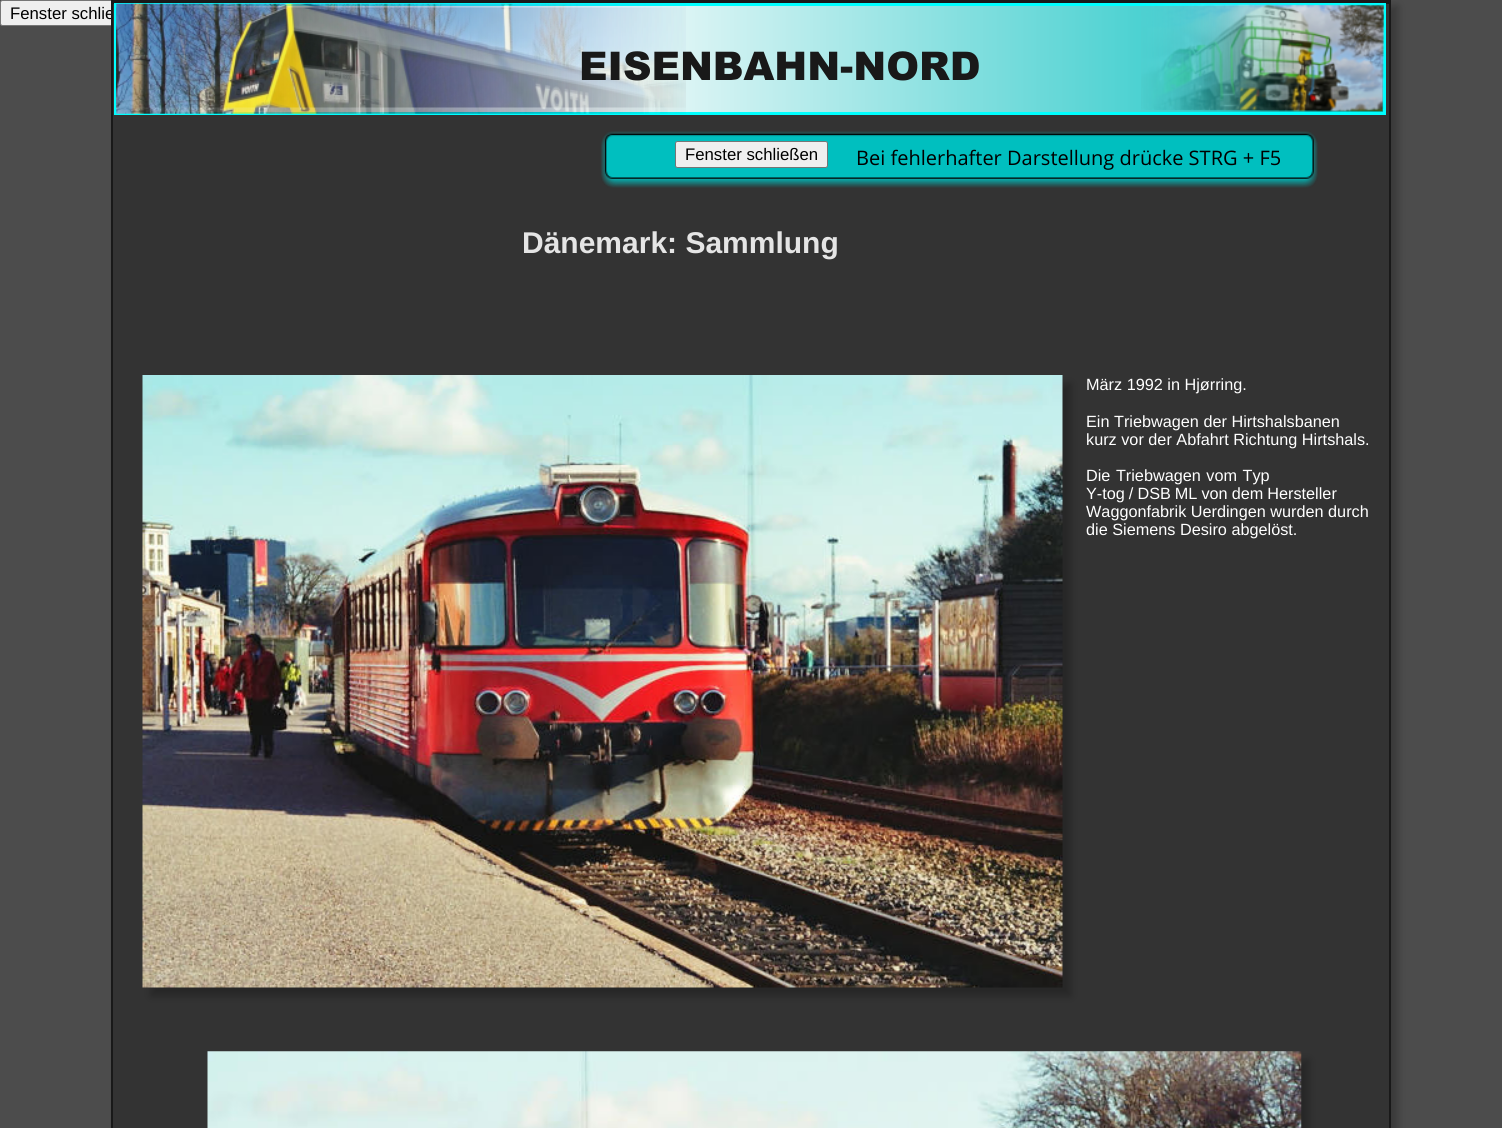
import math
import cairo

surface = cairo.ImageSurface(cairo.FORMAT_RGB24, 1502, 1128)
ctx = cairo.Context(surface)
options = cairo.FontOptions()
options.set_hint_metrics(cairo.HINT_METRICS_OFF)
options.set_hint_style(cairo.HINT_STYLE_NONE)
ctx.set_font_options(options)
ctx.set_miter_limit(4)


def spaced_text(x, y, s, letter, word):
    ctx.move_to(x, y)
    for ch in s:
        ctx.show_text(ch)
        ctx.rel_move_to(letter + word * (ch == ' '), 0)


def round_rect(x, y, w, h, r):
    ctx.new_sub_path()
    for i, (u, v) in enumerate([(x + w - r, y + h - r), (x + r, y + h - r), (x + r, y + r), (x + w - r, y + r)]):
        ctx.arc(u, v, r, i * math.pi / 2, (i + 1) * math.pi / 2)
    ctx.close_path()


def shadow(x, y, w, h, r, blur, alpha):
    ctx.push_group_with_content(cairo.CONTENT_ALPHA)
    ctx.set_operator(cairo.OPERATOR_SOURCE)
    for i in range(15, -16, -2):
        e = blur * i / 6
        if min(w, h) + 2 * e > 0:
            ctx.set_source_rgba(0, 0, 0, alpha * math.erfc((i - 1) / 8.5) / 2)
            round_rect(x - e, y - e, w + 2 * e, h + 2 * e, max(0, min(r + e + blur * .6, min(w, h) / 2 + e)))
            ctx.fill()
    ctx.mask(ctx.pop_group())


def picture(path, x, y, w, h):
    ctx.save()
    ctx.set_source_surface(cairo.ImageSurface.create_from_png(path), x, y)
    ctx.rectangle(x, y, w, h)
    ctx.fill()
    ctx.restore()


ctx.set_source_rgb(0.298, 0.298, 0.298)
ctx.paint()
ctx.set_source_rgb(0.937, 0.937, 0.937)
round_rect(0.5, 0.5, 152, 25, 2)
ctx.fill_preserve()
ctx.set_source_rgb(0.463, 0.463, 0.463)
ctx.set_line_width(1)
ctx.stroke()
ctx.select_font_face("Liberation Sans")
ctx.set_font_size(16.75)
ctx.set_source_rgb(0, 0, 0)
ctx.move_to(10, 19)
ctx.show_text("Fenster schlie")
ctx.set_source_rgb(0, 0, 0)
shadow(118, 6, 1280, 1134, 0, 4, 0.25)
ctx.set_source_rgb(0.2, 0.2, 0.2)
ctx.rectangle(113, 4, 1276, 1124)
ctx.fill()
ctx.save()
ctx.rectangle(111, 0, 1280, 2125)
ctx.clip()
ctx.rectangle(110.5, 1.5, 1281, 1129)
ctx.set_source_rgb(0.098, 0.098, 0.098)
ctx.set_line_width(5)
ctx.stroke()
ctx.restore()
gradient = cairo.LinearGradient(116, 59, 1384, 59)
gradient.add_color_stop_rgba(0.39, 0.949, 0.98, 0.98, 1)
gradient.add_color_stop_rgba(1, 0, 0.749, 0.749, 1)
ctx.set_source(gradient)
ctx.rectangle(129, 6, 1254, 106)
ctx.fill()
ctx.rectangle(115.5, 4.5, 1269, 109)
ctx.set_source_rgb(0, 1, 1)
ctx.set_line_width(3)
ctx.stroke()
picture("img1.png", 116, 3, 570, 111)
picture("img2.png", 1141, 3, 243, 109)
picture("img3.png", 116, 7, 570, 101)
ctx.select_font_face("Arial Black")
ctx.set_font_size(39.5)
ctx.set_source_rgb(0.098, 0.098, 0.098)
ctx.move_to(579, 80)
ctx.show_text("EISENBAHN-NORD")
picture("img4.png", 601, 131, 717, 57)
ctx.set_source_rgb(0.937, 0.937, 0.937)
round_rect(675.5, 141.5, 152, 26, 2)
ctx.fill_preserve()
ctx.set_source_rgb(0.463, 0.463, 0.463)
ctx.set_line_width(1)
ctx.stroke()
ctx.select_font_face("Liberation Sans")
ctx.set_font_size(16.75)
ctx.set_source_rgb(0, 0, 0)
ctx.move_to(685, 160)
ctx.show_text("Fenster schließen")
ctx.select_font_face("Open Sans")
ctx.set_font_size(20)
ctx.move_to(856, 165)
ctx.show_text("Bei fehlerhafter Darstellung drücke STRG + F5")
ctx.select_font_face("Liberation Sans", cairo.FONT_SLANT_NORMAL, cairo.FONT_WEIGHT_BOLD)
ctx.set_font_size(30)
ctx.set_source_rgb(0.898, 0.898, 0.898)
ctx.move_to(522, 253)
ctx.show_text("Dänemark: Sammlung")
ctx.set_source_rgb(0, 0, 0)
shadow(151, 384, 920, 612, 0, 4, 0.25)
picture("img5.png", 142, 375, 921, 613)
ctx.select_font_face("Liberation Sans")
ctx.set_font_size(16.25)
ctx.set_source_rgb(1, 1, 1)
ctx.move_to(1086, 390)
ctx.show_text("März 1992 in Hjørring.")
ctx.move_to(1086, 427)
ctx.show_text("Ein Triebwagen der Hirtshalsbanen")
ctx.move_to(1086, 445)
ctx.show_text("kurz vor der Abfahrt Richtung Hirtshals.")
spaced_text(1086, 481, "Die Triebwagen vom Typ", 0, 1)
spaced_text(1086, 499, "Y-tog / DSB ML von dem Hersteller", 0, -0.5)
ctx.move_to(1086, 517)
ctx.show_text("Waggonfabrik Uerdingen wurden durch")
ctx.move_to(1086, 535)
ctx.show_text("die Siemens Desiro abgelöst.")
ctx.set_source_rgb(0, 0, 0)
shadow(215, 1060, 1094, 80, 0, 4, 0.25)
picture("img6.png", 207, 1051, 1095, 77)
surface.write_to_png("page.png")
